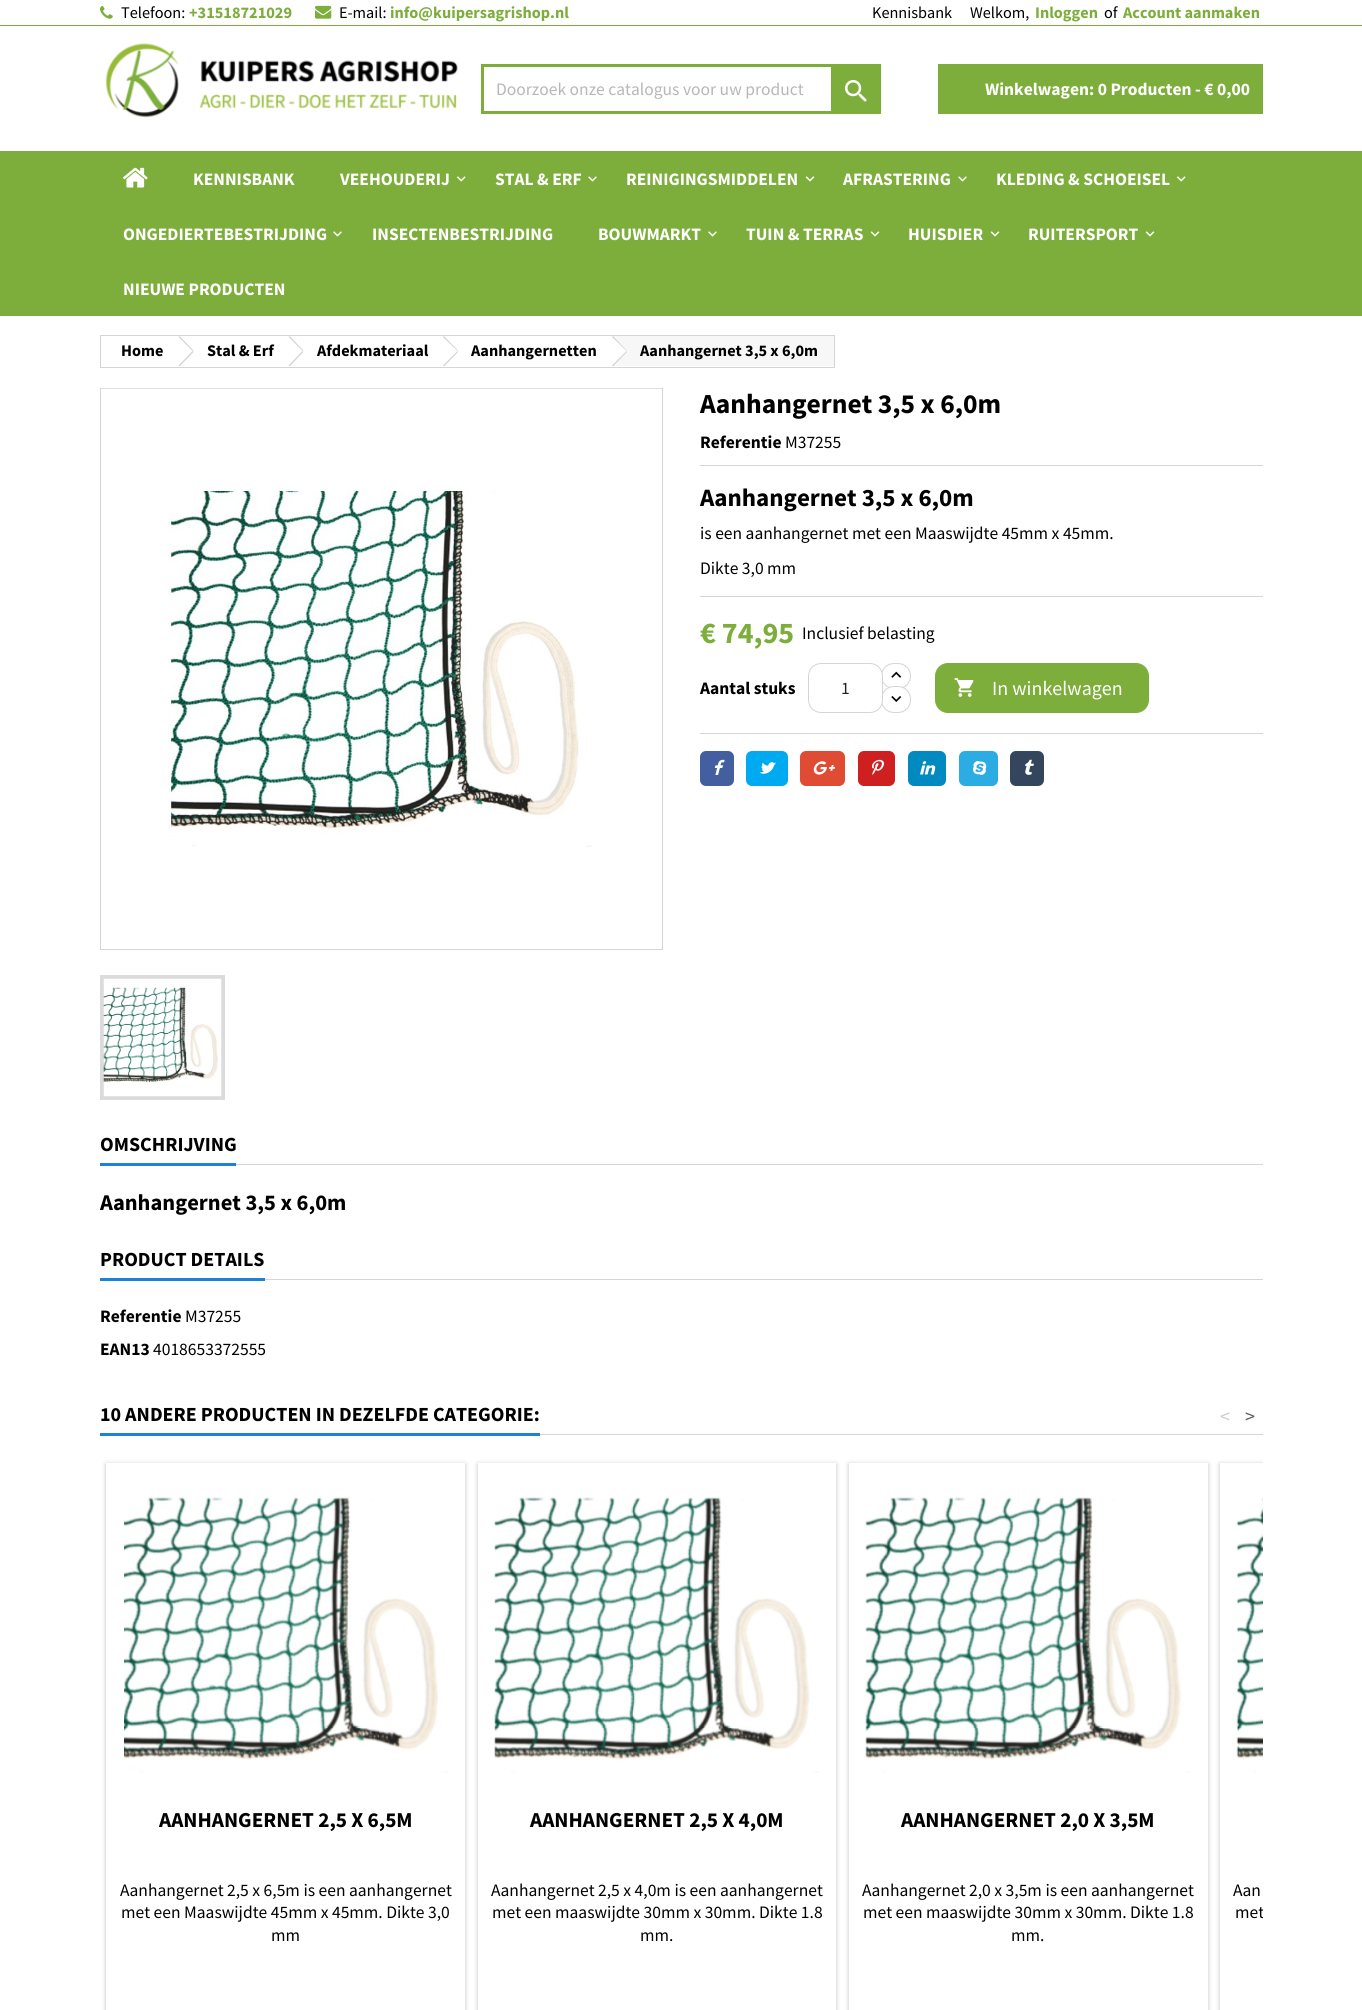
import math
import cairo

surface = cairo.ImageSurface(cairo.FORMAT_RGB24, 1362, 2010)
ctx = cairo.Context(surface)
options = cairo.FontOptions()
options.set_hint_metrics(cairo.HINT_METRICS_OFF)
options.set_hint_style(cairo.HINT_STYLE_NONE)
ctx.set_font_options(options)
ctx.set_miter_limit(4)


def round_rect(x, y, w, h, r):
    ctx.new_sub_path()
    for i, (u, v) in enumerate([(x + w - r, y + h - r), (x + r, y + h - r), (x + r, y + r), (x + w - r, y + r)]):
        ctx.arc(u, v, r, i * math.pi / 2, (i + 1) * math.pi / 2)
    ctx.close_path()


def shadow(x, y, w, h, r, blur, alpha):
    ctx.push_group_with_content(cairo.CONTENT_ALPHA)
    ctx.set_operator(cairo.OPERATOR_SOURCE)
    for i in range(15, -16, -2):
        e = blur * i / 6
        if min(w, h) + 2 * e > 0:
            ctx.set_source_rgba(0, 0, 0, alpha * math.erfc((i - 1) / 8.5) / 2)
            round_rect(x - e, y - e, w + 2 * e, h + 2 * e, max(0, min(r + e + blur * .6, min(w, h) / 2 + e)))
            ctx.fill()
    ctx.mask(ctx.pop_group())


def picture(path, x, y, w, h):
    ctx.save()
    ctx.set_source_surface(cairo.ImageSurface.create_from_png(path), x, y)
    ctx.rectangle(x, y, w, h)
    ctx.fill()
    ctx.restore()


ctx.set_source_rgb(1, 1, 1)
ctx.paint()
ctx.set_source_rgb(0.49, 0.682, 0.235)
ctx.rectangle(0, 25, 1362, 1)
ctx.fill()
picture("img1.png", 100, 6, 13, 13)
ctx.select_font_face("Source Sans Pro")
ctx.set_font_size(16.25)
ctx.set_source_rgb(0, 0, 0)
ctx.move_to(121, 18)
ctx.show_text("Telefoon:")
ctx.select_font_face("Source Sans Pro", cairo.FONT_SLANT_NORMAL, cairo.FONT_WEIGHT_BOLD)
ctx.set_source_rgb(0.49, 0.682, 0.235)
ctx.move_to(189, 18)
ctx.show_text("+31518721029")
picture("img2.png", 315, 5, 17, 14)
ctx.select_font_face("Source Sans Pro")
ctx.set_source_rgb(0, 0, 0)
ctx.move_to(339, 18)
ctx.show_text("E-mail:")
ctx.select_font_face("Source Sans Pro", cairo.FONT_SLANT_NORMAL, cairo.FONT_WEIGHT_BOLD)
ctx.set_source_rgb(0.49, 0.682, 0.235)
ctx.move_to(390, 18)
ctx.show_text("info@kuipersagrishop.nl")
ctx.select_font_face("Source Sans Pro")
ctx.set_source_rgb(0, 0, 0)
ctx.move_to(872, 18)
ctx.show_text("Kennisbank")
ctx.move_to(970, 18)
ctx.show_text("Welkom,")
ctx.select_font_face("Source Sans Pro", cairo.FONT_SLANT_NORMAL, cairo.FONT_WEIGHT_BOLD)
ctx.set_source_rgb(0.49, 0.682, 0.235)
ctx.move_to(1035, 18)
ctx.show_text("Inloggen")
ctx.select_font_face("Source Sans Pro")
ctx.set_source_rgb(0, 0, 0)
ctx.move_to(1104, 18)
ctx.show_text("of")
ctx.select_font_face("Source Sans Pro", cairo.FONT_SLANT_NORMAL, cairo.FONT_WEIGHT_BOLD)
ctx.set_source_rgb(0.49, 0.682, 0.235)
ctx.move_to(1123, 18)
ctx.show_text("Account aanmaken")
picture("img3.png", 105, 43, 353, 75)
ctx.rectangle(482.5, 65.5, 397, 47)
ctx.set_line_width(3)
ctx.stroke()
ctx.select_font_face("Source Sans Pro")
ctx.set_font_size(17.5)
ctx.set_source_rgb(0.718, 0.718, 0.718)
ctx.move_to(496, 95)
ctx.show_text("Doorzoek onze catalogus voor uw product")
ctx.set_source_rgb(0.49, 0.682, 0.235)
ctx.rectangle(831, 67, 47, 44)
ctx.fill()
picture("img4.png", 845, 80, 22, 22)
ctx.rectangle(938, 64, 325, 50)
ctx.fill()
ctx.select_font_face("Source Sans Pro", cairo.FONT_SLANT_NORMAL, cairo.FONT_WEIGHT_BOLD)
ctx.set_source_rgb(1, 1, 1)
ctx.move_to(985, 95)
ctx.show_text("Winkelwagen: 0 Producten - € 0,00")
ctx.set_source_rgb(0.49, 0.682, 0.235)
ctx.rectangle(0, 151, 1362, 165)
ctx.fill()
picture("img5.png", 122, 167, 26, 21)
ctx.set_source_rgb(1, 1, 1)
ctx.move_to(193, 185)
ctx.show_text("KENNISBANK")
ctx.move_to(340, 185)
ctx.show_text("VEEHOUDERIJ")
picture("img6.png", 457, 176, 9, 6)
ctx.move_to(495, 185)
ctx.show_text("STAL & ERF")
picture("img7.png", 588, 176, 9, 6)
ctx.move_to(626, 185)
ctx.show_text("REINIGINGSMIDDELEN")
picture("img8.png", 805, 176, 10, 6)
ctx.move_to(843, 185)
ctx.show_text("AFRASTERING")
picture("img7.png", 958, 176, 9, 6)
ctx.move_to(996, 185)
ctx.show_text("KLEDING & SCHOEISEL")
picture("img6.png", 1177, 176, 9, 6)
ctx.move_to(123, 240)
ctx.show_text("ONGEDIERTEBESTRIJDING")
picture("img7.png", 333, 231, 9, 6)
ctx.move_to(372, 240)
ctx.show_text("INSECTENBESTRIJDING")
ctx.move_to(598, 240)
ctx.show_text("BOUWMARKT")
picture("img7.png", 708, 231, 9, 6)
ctx.move_to(746, 240)
ctx.show_text("TUIN & TERRAS")
picture("img8.png", 870, 231, 10, 6)
ctx.move_to(908, 240)
ctx.show_text("HUISDIER")
picture("img8.png", 990, 231, 10, 6)
ctx.move_to(1028, 240)
ctx.show_text("RUITERSPORT")
picture("img8.png", 1145, 231, 10, 6)
ctx.move_to(123, 295)
ctx.show_text("NIEUWE PRODUCTEN")
ctx.rectangle(100.5, 335.5, 734, 32)
ctx.set_source_rgb(0.839, 0.831, 0.831)
ctx.set_line_width(1)
ctx.stroke()
ctx.set_font_size(16.25)
ctx.set_source_rgb(0, 0, 0)
ctx.move_to(121, 356)
ctx.show_text("Home")
ctx.set_source_rgb(0.839, 0.831, 0.831)
ctx.new_path()
ctx.move_to(179.5, 336)
ctx.line_to(193.5, 350.5)
ctx.line_to(192.5, 351)
ctx.line_to(178.5, 337)
ctx.close_path()
ctx.move_to(192.5, 351)
ctx.line_to(193.5, 352)
ctx.line_to(179.5, 366.5)
ctx.line_to(178.5, 365.5)
ctx.close_path()
ctx.fill()
ctx.set_source_rgb(0, 0, 0)
ctx.move_to(207, 356)
ctx.show_text("Stal & Erf")
ctx.set_source_rgb(0.839, 0.831, 0.831)
ctx.new_path()
ctx.move_to(289.5, 336)
ctx.line_to(303.5, 350.5)
ctx.line_to(302.5, 351)
ctx.line_to(288.5, 337)
ctx.close_path()
ctx.move_to(302.5, 351)
ctx.line_to(303.5, 352)
ctx.line_to(289.5, 366.5)
ctx.line_to(288.5, 365.5)
ctx.close_path()
ctx.fill()
ctx.set_source_rgb(0, 0, 0)
ctx.move_to(317, 356)
ctx.show_text("Afdekmateriaal")
ctx.set_source_rgb(0.839, 0.831, 0.831)
ctx.new_path()
ctx.move_to(444, 336)
ctx.line_to(458, 350.5)
ctx.line_to(457.5, 351)
ctx.line_to(443, 337)
ctx.close_path()
ctx.move_to(457.5, 351)
ctx.line_to(458, 352)
ctx.line_to(444, 366.5)
ctx.line_to(443, 365.5)
ctx.close_path()
ctx.fill()
ctx.set_source_rgb(0, 0, 0)
ctx.move_to(471, 356)
ctx.show_text("Aanhangernetten")
ctx.set_source_rgb(0.965, 0.965, 0.965)
ctx.rectangle(613, 336, 221, 30)
ctx.fill()
ctx.set_source_rgb(1, 1, 1)
ctx.new_path()
ctx.move_to(614, 337)
ctx.line_to(626.5, 349.5)
ctx.curve_to(627.5, 350.5, 627.5, 352, 626.5, 353)
ctx.line_to(614, 365.5)
ctx.curve_to(613, 366.5, 611.5, 366.5, 610.5, 365.5)
ctx.line_to(598, 353)
ctx.curve_to(597, 352, 597, 350.5, 598, 349.5)
ctx.line_to(610.5, 337)
ctx.curve_to(611.5, 336, 613, 336, 614, 337)
ctx.close_path()
ctx.fill()
ctx.set_source_rgb(0.839, 0.831, 0.831)
ctx.new_path()
ctx.move_to(613, 336)
ctx.line_to(627, 350.5)
ctx.line_to(626.5, 351)
ctx.line_to(612, 337)
ctx.close_path()
ctx.move_to(626.5, 351)
ctx.line_to(627, 352)
ctx.line_to(613, 366.5)
ctx.line_to(612, 365.5)
ctx.close_path()
ctx.fill()
ctx.set_source_rgb(0, 0, 0)
ctx.move_to(640, 356)
ctx.show_text("Aanhangernet 3,5 x 6,0m")
ctx.rectangle(100.5, 388.5, 562, 561)
ctx.set_source_rgb(0.839, 0.831, 0.831)
ctx.stroke()
picture("img9.png", 101, 388, 560, 460)
ctx.rectangle(102, 977, 121, 121)
ctx.set_source_rgb(0.859, 0.859, 0.859)
ctx.set_line_width(4)
ctx.stroke()
picture("img10.png", 103, 978, 119, 119)
ctx.set_font_size(27.5)
ctx.set_source_rgb(0, 0, 0)
ctx.move_to(700, 413)
ctx.show_text("Aanhangernet 3,5 x 6,0m")
ctx.set_font_size(17.5)
ctx.move_to(700, 448)
ctx.show_text("Referentie")
ctx.select_font_face("Source Sans Pro")
ctx.move_to(785, 448)
ctx.show_text("M37255")
ctx.set_source_rgb(0.839, 0.831, 0.831)
ctx.rectangle(700, 465, 563, 1)
ctx.fill()
ctx.select_font_face("Source Sans Pro", cairo.FONT_SLANT_NORMAL, cairo.FONT_WEIGHT_BOLD)
ctx.set_font_size(25)
ctx.set_source_rgb(0, 0, 0)
ctx.move_to(700, 506)
ctx.show_text("Aanhangernet 3,5 x 6,0m")
ctx.select_font_face("Source Sans Pro")
ctx.set_font_size(17.5)
ctx.move_to(700, 539)
ctx.show_text("is een aanhangernet met een Maaswijdte 45mm x 45mm.")
ctx.move_to(700, 574)
ctx.show_text("Dikte 3,0 mm")
ctx.set_source_rgb(0.839, 0.831, 0.831)
ctx.rectangle(700, 596, 563, 1)
ctx.fill()
ctx.select_font_face("Source Sans Pro", cairo.FONT_SLANT_NORMAL, cairo.FONT_WEIGHT_BOLD)
ctx.set_font_size(30)
ctx.set_source_rgb(0.49, 0.682, 0.235)
ctx.move_to(700, 643)
ctx.show_text("€ 74,95")
ctx.select_font_face("Source Sans Pro")
ctx.set_font_size(17.5)
ctx.set_source_rgb(0, 0, 0)
ctx.move_to(802, 639)
ctx.show_text("Inclusief belasting")
ctx.select_font_face("Source Sans Pro", cairo.FONT_SLANT_NORMAL, cairo.FONT_WEIGHT_BOLD)
ctx.move_to(700, 694)
ctx.show_text("Aantal stuks")
round_rect(881.5, 663.5, 29, 25, 12.5)
ctx.set_source_rgb(0.839, 0.831, 0.831)
ctx.set_line_width(1)
ctx.stroke()
ctx.set_source_rgb(1, 1, 1)
round_rect(881.5, 686.5, 29, 26, 12.5)
ctx.fill_preserve()
ctx.set_source_rgb(0.839, 0.831, 0.831)
ctx.stroke()
ctx.set_source_rgb(1, 1, 1)
round_rect(808.5, 663.5, 74, 49, 12.5)
ctx.fill_preserve()
ctx.set_source_rgb(0.839, 0.831, 0.831)
ctx.stroke()
ctx.select_font_face("Source Sans Pro")
ctx.set_source_rgb(0.137, 0.137, 0.137)
ctx.move_to(841, 694)
ctx.show_text("1")
picture("img11.png", 891, 671, 11, 7)
picture("img12.png", 891, 696, 11, 6)
ctx.set_source_rgb(0.49, 0.682, 0.235)
round_rect(935.5, 663.5, 213, 49, 12.5)
ctx.fill_preserve()
ctx.stroke()
picture("img13.png", 954, 678, 20, 19)
ctx.set_font_size(20)
ctx.set_source_rgb(1, 1, 1)
ctx.move_to(992, 695)
ctx.show_text("In winkelwagen")
ctx.set_source_rgb(0.839, 0.831, 0.831)
ctx.rectangle(700, 733, 563, 1)
ctx.fill()
ctx.set_source_rgb(0.263, 0.373, 0.624)
round_rect(700, 751, 34, 35, 6)
ctx.fill()
picture("img14.png", 714, 759, 11, 16)
ctx.set_source_rgb(0, 0.667, 0.941)
round_rect(746, 751, 42, 35, 6)
ctx.fill()
picture("img15.png", 759, 762, 17, 12)
ctx.set_source_rgb(0.878, 0.294, 0.204)
round_rect(800, 751, 45, 35, 6)
ctx.fill()
picture("img16.png", 813, 761, 22, 14)
ctx.set_source_rgb(0.808, 0.122, 0.129)
round_rect(858, 751, 37, 35, 6)
ctx.fill()
picture("img17.png", 872, 759, 12, 16)
ctx.set_source_rgb(0.004, 0.541, 0.753)
round_rect(908, 751, 38, 35, 6)
ctx.fill()
picture("img18.png", 920, 761, 16, 14)
ctx.set_source_rgb(0.169, 0.675, 0.89)
round_rect(959, 751, 39, 35, 6)
ctx.fill()
picture("img19.png", 973, 761, 14, 14)
ctx.set_source_rgb(0.204, 0.275, 0.365)
round_rect(1010, 751, 34, 35, 6)
ctx.fill()
picture("img20.png", 1025, 759, 9, 16)
ctx.set_source_rgb(0.839, 0.831, 0.831)
ctx.rectangle(236, 1164, 1027, 1)
ctx.fill()
ctx.set_source_rgb(0.106, 0.51, 0.839)
ctx.rectangle(100, 1163, 136, 3)
ctx.fill()
ctx.select_font_face("Source Sans Pro", cairo.FONT_SLANT_NORMAL, cairo.FONT_WEIGHT_BOLD)
ctx.set_source_rgb(0, 0, 0)
ctx.move_to(100, 1151)
ctx.show_text("OMSCHRIJVING")
ctx.set_font_size(22.5)
ctx.move_to(100, 1210)
ctx.show_text("Aanhangernet 3,5 x 6,0m")
ctx.set_source_rgb(0.839, 0.831, 0.831)
ctx.rectangle(265, 1279, 998, 1)
ctx.fill()
ctx.set_source_rgb(0.106, 0.51, 0.839)
ctx.rectangle(100, 1278, 165, 3)
ctx.fill()
ctx.set_font_size(20)
ctx.set_source_rgb(0, 0, 0)
ctx.move_to(100, 1266)
ctx.show_text("PRODUCT DETAILS")
ctx.set_font_size(17.5)
ctx.move_to(100, 1322)
ctx.show_text("Referentie")
ctx.select_font_face("Source Sans Pro")
ctx.move_to(185, 1322)
ctx.show_text("M37255")
ctx.select_font_face("Source Sans Pro", cairo.FONT_SLANT_NORMAL, cairo.FONT_WEIGHT_BOLD)
ctx.move_to(100, 1355)
ctx.show_text("EAN13")
ctx.select_font_face("Source Sans Pro")
ctx.move_to(153, 1355)
ctx.show_text("4018653372555")
ctx.set_source_rgb(0.839, 0.831, 0.831)
ctx.rectangle(540, 1434, 723, 1)
ctx.fill()
ctx.set_source_rgb(0.106, 0.51, 0.839)
ctx.rectangle(100, 1433, 440, 3)
ctx.fill()
ctx.select_font_face("Source Sans Pro", cairo.FONT_SLANT_NORMAL, cairo.FONT_WEIGHT_BOLD)
ctx.set_font_size(20)
ctx.set_source_rgb(0, 0, 0)
ctx.move_to(100, 1421)
ctx.show_text("10 ANDERE PRODUCTEN IN DEZELFDE CATEGORIE:")
ctx.select_font_face("Source Sans Pro")
ctx.set_source_rgb(0.8, 0.8, 0.8)
ctx.move_to(1220, 1423)
ctx.show_text("<")
ctx.set_source_rgb(0.345, 0.345, 0.345)
ctx.move_to(1245, 1423)
ctx.show_text(">")
ctx.set_source_rgb(0, 0, 0)
shadow(106, 1464, 359, 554, 0, 2.5, 0.24)
ctx.set_source_rgb(1, 1, 1)
ctx.rectangle(106, 1463, 359, 547)
ctx.fill()
picture("img21.png", 124, 1497, 324, 276)
ctx.select_font_face("Source Sans Pro", cairo.FONT_SLANT_NORMAL, cairo.FONT_WEIGHT_BOLD)
ctx.set_font_size(21.25)
ctx.set_source_rgb(0, 0, 0)
ctx.move_to(159, 1827)
ctx.show_text("AANHANGERNET 2,5 X 6,5M")
ctx.select_font_face("Source Sans Pro")
ctx.set_font_size(17.5)
ctx.move_to(120, 1896)
ctx.show_text("Aanhangernet 2,5 x 6,5m is een aanhangernet")
ctx.move_to(121, 1918)
ctx.show_text("met een Maaswijdte 45mm x 45mm. Dikte 3,0")
ctx.move_to(271, 1941)
ctx.show_text("mm")
ctx.save()
ctx.set_fill_rule(cairo.FILL_RULE_EVEN_ODD)
ctx.new_path()
ctx.move_to(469, 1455)
ctx.line_to(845, 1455)
ctx.line_to(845, 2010)
ctx.line_to(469, 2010)
ctx.close_path()
ctx.move_to(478, 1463)
ctx.line_to(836, 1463)
ctx.line_to(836, 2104)
ctx.line_to(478, 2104)
ctx.close_path()
ctx.clip()
ctx.set_source_rgb(0, 0, 0)
shadow(478, 1464, 358, 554, 0, 2.5, 0.24)
ctx.restore()
picture("img22.png", 494, 1497, 325, 276)
ctx.select_font_face("Source Sans Pro", cairo.FONT_SLANT_NORMAL, cairo.FONT_WEIGHT_BOLD)
ctx.set_font_size(21.25)
ctx.move_to(530, 1827)
ctx.show_text("AANHANGERNET 2,5 X 4,0M")
ctx.select_font_face("Source Sans Pro")
ctx.set_font_size(17.5)
ctx.move_to(491, 1896)
ctx.show_text("Aanhangernet 2,5 x 4,0m is een aanhangernet")
ctx.move_to(492, 1918)
ctx.show_text("met een maaswijdte 30mm x 30mm. Dikte 1.8")
ctx.move_to(640, 1941)
ctx.show_text("mm.")
ctx.set_source_rgb(0, 0, 0)
shadow(849, 1464, 359, 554, 0, 2.5, 0.24)
ctx.set_source_rgb(1, 1, 1)
ctx.rectangle(849, 1463, 359, 547)
ctx.fill()
picture("img23.png", 865, 1497, 325, 276)
ctx.select_font_face("Source Sans Pro", cairo.FONT_SLANT_NORMAL, cairo.FONT_WEIGHT_BOLD)
ctx.set_font_size(21.25)
ctx.set_source_rgb(0, 0, 0)
ctx.move_to(901, 1827)
ctx.show_text("AANHANGERNET 2,0 X 3,5M")
ctx.select_font_face("Source Sans Pro")
ctx.set_font_size(17.5)
ctx.move_to(862, 1896)
ctx.show_text("Aanhangernet 2,0 x 3,5m is een aanhangernet")
ctx.move_to(863, 1918)
ctx.show_text("met een maaswijdte 30mm x 30mm. Dikte 1.8")
ctx.move_to(1011, 1941)
ctx.show_text("mm.")
ctx.save()
ctx.rectangle(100, 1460, 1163, 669)
ctx.clip()
ctx.set_fill_rule(cairo.FILL_RULE_EVEN_ODD)
ctx.new_path()
ctx.move_to(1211, 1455)
ctx.line_to(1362, 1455)
ctx.line_to(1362, 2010)
ctx.line_to(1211, 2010)
ctx.close_path()
ctx.move_to(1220, 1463)
ctx.line_to(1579, 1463)
ctx.line_to(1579, 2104)
ctx.line_to(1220, 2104)
ctx.close_path()
ctx.clip()
ctx.set_source_rgb(0, 0, 0)
shadow(1220, 1464, 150, 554, 0, 2.5, 0.24)
ctx.restore()
picture("img24.png", 1236, 1498, 27, 275)
ctx.move_to(1233, 1896)
ctx.show_text("Aan")
ctx.save()
ctx.rectangle(1231, 1879, 32, 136)
ctx.clip()
ctx.move_to(1235, 1918)
ctx.show_text("met")
ctx.restore()
surface.write_to_png("page.png")
